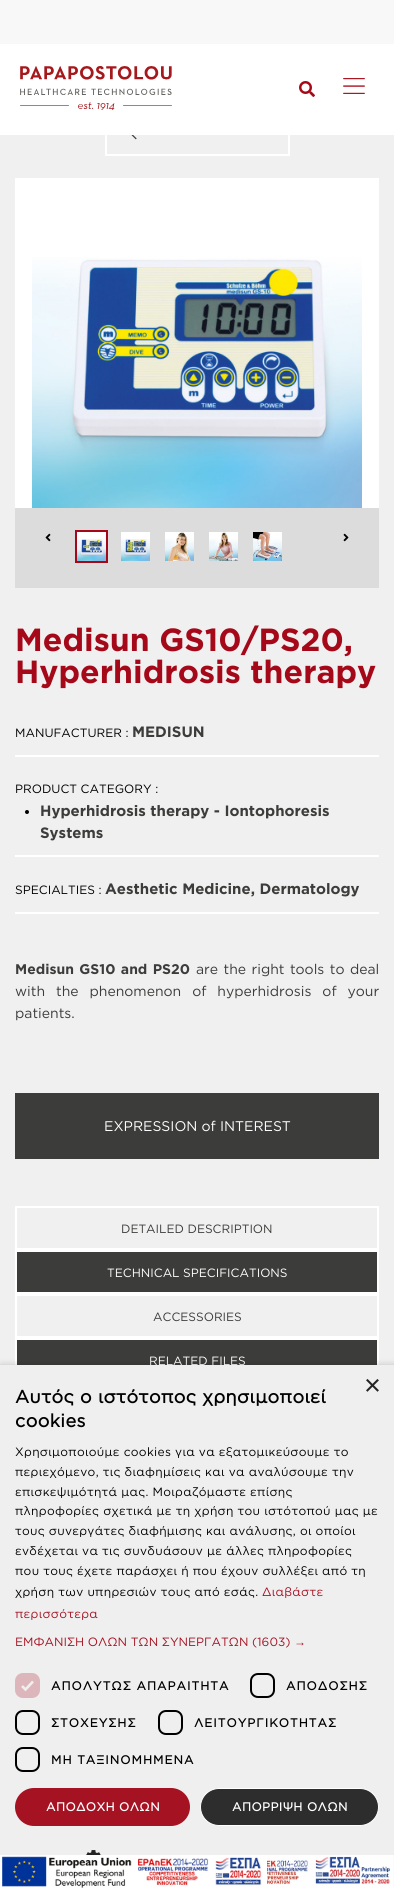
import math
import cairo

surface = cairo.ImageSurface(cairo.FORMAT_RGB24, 394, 1888)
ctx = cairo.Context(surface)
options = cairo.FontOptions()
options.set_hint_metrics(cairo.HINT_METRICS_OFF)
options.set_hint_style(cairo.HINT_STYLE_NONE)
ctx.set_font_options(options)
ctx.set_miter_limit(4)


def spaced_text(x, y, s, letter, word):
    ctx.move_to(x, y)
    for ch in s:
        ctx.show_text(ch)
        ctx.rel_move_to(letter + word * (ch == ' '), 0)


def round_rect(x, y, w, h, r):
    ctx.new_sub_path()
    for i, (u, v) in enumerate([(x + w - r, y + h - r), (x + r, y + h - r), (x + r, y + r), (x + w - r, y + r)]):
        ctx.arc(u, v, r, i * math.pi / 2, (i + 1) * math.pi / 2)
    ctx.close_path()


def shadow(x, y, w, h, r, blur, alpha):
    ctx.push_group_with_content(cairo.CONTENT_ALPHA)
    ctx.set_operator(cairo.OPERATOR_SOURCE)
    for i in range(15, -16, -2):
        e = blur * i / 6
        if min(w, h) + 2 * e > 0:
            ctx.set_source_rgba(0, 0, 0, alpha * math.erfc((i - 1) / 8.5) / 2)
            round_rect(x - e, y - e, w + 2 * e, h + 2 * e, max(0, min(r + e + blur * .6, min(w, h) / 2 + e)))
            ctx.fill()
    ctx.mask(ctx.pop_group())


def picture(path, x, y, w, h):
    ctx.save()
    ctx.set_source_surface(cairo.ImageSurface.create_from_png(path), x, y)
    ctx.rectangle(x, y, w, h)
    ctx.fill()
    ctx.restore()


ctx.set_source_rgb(0.941, 0.941, 0.941)
ctx.paint()
ctx.rectangle(106, 113, 183, 42)
ctx.set_source_rgb(1, 1, 1)
ctx.stroke()
ctx.rectangle(0, 44, 394, 91)
ctx.fill()
ctx.set_source_rgb(0.969, 0.969, 0.969)
ctx.rectangle(0, 0, 394, 44)
ctx.fill()
picture("img1.png", 20, 66, 152, 44)
picture("img2.png", 299, 81, 16, 16)
picture("img3.png", 343, 78, 22, 16)
picture("img4.png", 131, 135, 6, 5)
ctx.set_source_rgb(1, 1, 1)
ctx.rectangle(15, 178, 364, 330)
ctx.fill()
picture("img5.png", 32, 257, 330, 251)
ctx.set_source_rgb(0.863, 0.863, 0.863)
ctx.rectangle(15, 508, 364, 80)
ctx.fill()
picture("img6.png", 45, 533, 6, 9)
picture("img7.png", 77, 532, 29, 29)
ctx.rectangle(76, 531, 31, 31)
ctx.set_source_rgb(0.647, 0.039, 0.098)
ctx.stroke()
picture("img8.png", 121, 532, 29, 29)
picture("img9.png", 165, 532, 29, 29)
picture("img10.png", 209, 532, 29, 29)
picture("img11.png", 253, 532, 29, 29)
picture("img12.png", 343, 533, 6, 9)
ctx.select_font_face("Gotham", cairo.FONT_SLANT_NORMAL, cairo.FONT_WEIGHT_BOLD)
ctx.set_font_size(32)
ctx.move_to(15, 651)
ctx.show_text("Medisun GS10/PS20,")
ctx.move_to(15, 683)
ctx.show_text("Hyperhidrosis therapy")
ctx.set_source_rgb(1, 1, 1)
ctx.rectangle(15, 755, 364, 2)
ctx.fill()
ctx.select_font_face("Gotham")
ctx.set_font_size(12)
ctx.set_source_rgb(0, 0, 0)
ctx.move_to(15, 737)
ctx.show_text("MANUFACTURER :")
ctx.select_font_face("Gotham", cairo.FONT_SLANT_NORMAL, cairo.FONT_WEIGHT_BOLD)
ctx.set_font_size(15)
ctx.set_source_rgb(0.235, 0.235, 0.231)
ctx.move_to(132, 737)
ctx.show_text("MEDISUN")
ctx.set_source_rgb(1, 1, 1)
ctx.rectangle(15, 855, 364, 2)
ctx.fill()
ctx.select_font_face("Gotham")
ctx.set_font_size(12)
ctx.set_source_rgb(0, 0, 0)
ctx.move_to(15, 793)
ctx.show_text("PRODUCT CATEGORY :")
ctx.new_path()
ctx.arc(27, 812, 2, 0, 2 * math.pi)
ctx.fill()
ctx.select_font_face("Gotham", cairo.FONT_SLANT_NORMAL, cairo.FONT_WEIGHT_BOLD)
ctx.set_font_size(15)
ctx.set_source_rgb(0.235, 0.235, 0.231)
ctx.move_to(40, 816)
ctx.show_text("Hyperhidrosis therapy - Iontophoresis")
ctx.move_to(40, 838)
ctx.show_text("Systems")
ctx.set_source_rgb(1, 1, 1)
ctx.rectangle(15, 912, 364, 2)
ctx.fill()
ctx.select_font_face("Gotham")
ctx.set_font_size(12)
ctx.set_source_rgb(0, 0, 0)
ctx.move_to(15, 894)
ctx.show_text("SPECIALTIES :")
ctx.select_font_face("Gotham", cairo.FONT_SLANT_NORMAL, cairo.FONT_WEIGHT_BOLD)
ctx.set_font_size(15)
ctx.set_source_rgb(0.235, 0.235, 0.231)
ctx.move_to(105, 894)
ctx.show_text("Aesthetic Medicine, Dermatology")
ctx.set_font_size(14)
spaced_text(15, 974, "Medisun GS10 and PS20", 0, 1.25)
ctx.select_font_face("Gotham")
spaced_text(196, 974, "are the right tools to deal", 0, 1.25)
spaced_text(15, 996, "with the phenomenon of hyperhidrosis of your", 0, 6.75)
ctx.move_to(15, 1018)
ctx.show_text("patients.")
ctx.rectangle(15, 1093, 364, 66)
ctx.fill()
ctx.set_source_rgb(1, 1, 1)
ctx.move_to(104, 1131)
ctx.show_text("EXPRESSION of INTEREST")
ctx.rectangle(16, 1207, 362, 42)
ctx.stroke()
ctx.set_font_size(12)
ctx.set_source_rgb(0.235, 0.235, 0.231)
ctx.move_to(121, 1233)
ctx.show_text("DETAILED DESCRIPTION")
ctx.rectangle(16, 1251, 362, 42)
ctx.fill_preserve()
ctx.set_source_rgb(1, 1, 1)
ctx.stroke()
ctx.move_to(107, 1277)
ctx.show_text("TECHNICAL SPECIFICATIONS")
ctx.rectangle(16, 1295, 362, 42)
ctx.stroke()
ctx.set_source_rgb(0.235, 0.235, 0.231)
ctx.move_to(153, 1321)
ctx.show_text("ACCESSORIES")
ctx.rectangle(17, 1340, 360, 25)
ctx.fill()
ctx.rectangle(16, 1339, 362, 42)
ctx.set_source_rgb(1, 1, 1)
ctx.stroke()
ctx.move_to(149, 1365)
ctx.show_text("RELATED FILES")
ctx.set_source_rgb(0, 0, 0)
shadow(1, 1367, 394, 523, 0, 4, 0.35)
ctx.set_source_rgb(0.937, 0.937, 0.941)
ctx.rectangle(0, 1365, 394, 523)
ctx.fill()
ctx.select_font_face("Liberation Sans")
ctx.set_font_size(29)
ctx.set_source_rgb(0.141, 0.141, 0.141)
ctx.move_to(364, 1395)
ctx.show_text("×")
ctx.select_font_face("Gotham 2", cairo.FONT_SLANT_NORMAL, cairo.FONT_WEIGHT_BOLD)
ctx.set_font_size(18)
ctx.set_source_rgb(0, 0, 0)
spaced_text(15, 1403, "Αυτός ο ιστότοπος χρησιμοποιεί", 0.4, 0)
spaced_text(15, 1427, "cookies", 0.4, 0)
ctx.select_font_face("Gotham")
ctx.set_font_size(12)
spaced_text(15, 1456, "Χρησιμοποιούμε cookies για να εξατομικεύσουμε το", 0.3, 0)
spaced_text(15, 1476, "περιεχόμενο, τις διαφημίσεις και να αναλύσουμε την", 0.3, 0)
spaced_text(15, 1496, "επισκεψιμότητά μας. Μοιραζόμαστε επίσης", 0.3, 0)
spaced_text(15, 1515, "πληροφορίες σχετικά με τη χρήση του ιστότοπού μας με", 0.3, 0)
spaced_text(15, 1535, "τους συνεργάτες διαφήμισης και ανάλυσης, οι οποίοι", 0.3, 0)
spaced_text(15, 1555, "ενδέχεται να τις συνδυάσουν με άλλες πληροφορίες", 0.3, 0)
spaced_text(15, 1575, "που τους έχετε παράσχει ή που έχουν συλλέξει από τη", 0.3, 0)
spaced_text(15, 1596, "χρήση των υπηρεσιών τους από εσάς.", 0.3, 0)
ctx.set_source_rgb(0.647, 0.071, 0.133)
spaced_text(262, 1596, "Διαβάστε", 0.3, 0)
spaced_text(15, 1618, "περισσότερα", 0.3, 0)
ctx.move_to(15, 1646)
ctx.show_text("ΕΜΦΑΝΙΣΗ ΟΛΩΝ ΤΩΝ ΣΥΝΕΡΓΑΤΩΝ (1603)")
ctx.select_font_face("Liberation Serif")
ctx.move_to(294, 1646)
ctx.show_text("→")
ctx.set_source_rgb(0.863, 0.714, 0.729)
round_rect(15, 1673, 25, 25, 8)
ctx.fill()
ctx.new_path()
ctx.move_to(22, 1686)
ctx.line_to(25.5, 1689.5)
ctx.line_to(33, 1681.5)
ctx.set_source_rgb(0.937, 0.937, 0.941)
ctx.set_line_width(2.6)
ctx.stroke()
ctx.select_font_face("Gotham 2", cairo.FONT_SLANT_NORMAL, cairo.FONT_WEIGHT_BOLD)
ctx.set_source_rgb(0, 0, 0)
spaced_text(51, 1690, "ΑΠΟΛΥΤΩΣ ΑΠΑΡΑΙΤΗΤΑ", 1, 0)
round_rect(251, 1674, 23, 23, 7)
ctx.set_line_width(2)
ctx.stroke()
spaced_text(286, 1690, "ΑΠΟΔΟΣΗΣ", 1, 0)
round_rect(16, 1711, 23, 23, 7)
ctx.stroke()
spaced_text(51, 1727, "ΣΤΟΧΕΥΣΗΣ", 1, 0)
round_rect(159, 1711, 23, 23, 7)
ctx.stroke()
spaced_text(194, 1727, "ΛΕΙΤΟΥΡΓΙΚΟΤΗΤΑΣ", 1, 0)
round_rect(16, 1748, 23, 23, 7)
ctx.stroke()
spaced_text(51, 1764, "ΜΗ ΤΑΞΙΝΟΜΗΜΕΝΑ", 1, 0)
ctx.set_source_rgb(0.647, 0.071, 0.133)
round_rect(15, 1788, 175, 38, 19)
ctx.fill()
ctx.set_source_rgb(1, 1, 1)
spaced_text(46, 1811, "ΑΠΟΔΟΧΗ ΟΛΩΝ", 0.4, 0)
ctx.set_source_rgb(0.176, 0.176, 0.176)
round_rect(200.5, 1788.5, 178, 37, 18.5)
ctx.fill_preserve()
ctx.set_source_rgb(1, 1, 1)
ctx.set_line_width(1)
ctx.stroke()
spaced_text(232, 1811, "ΑΠΟΡΡΙΨΗ ΟΛΩΝ", 0.4, 0)
picture("img13.png", 86, 1850, 15, 5)
picture("img14.png", 0, 1855, 267, 33)
picture("img15.png", 267, 1855, 127, 33)
surface.write_to_png("page.png")
